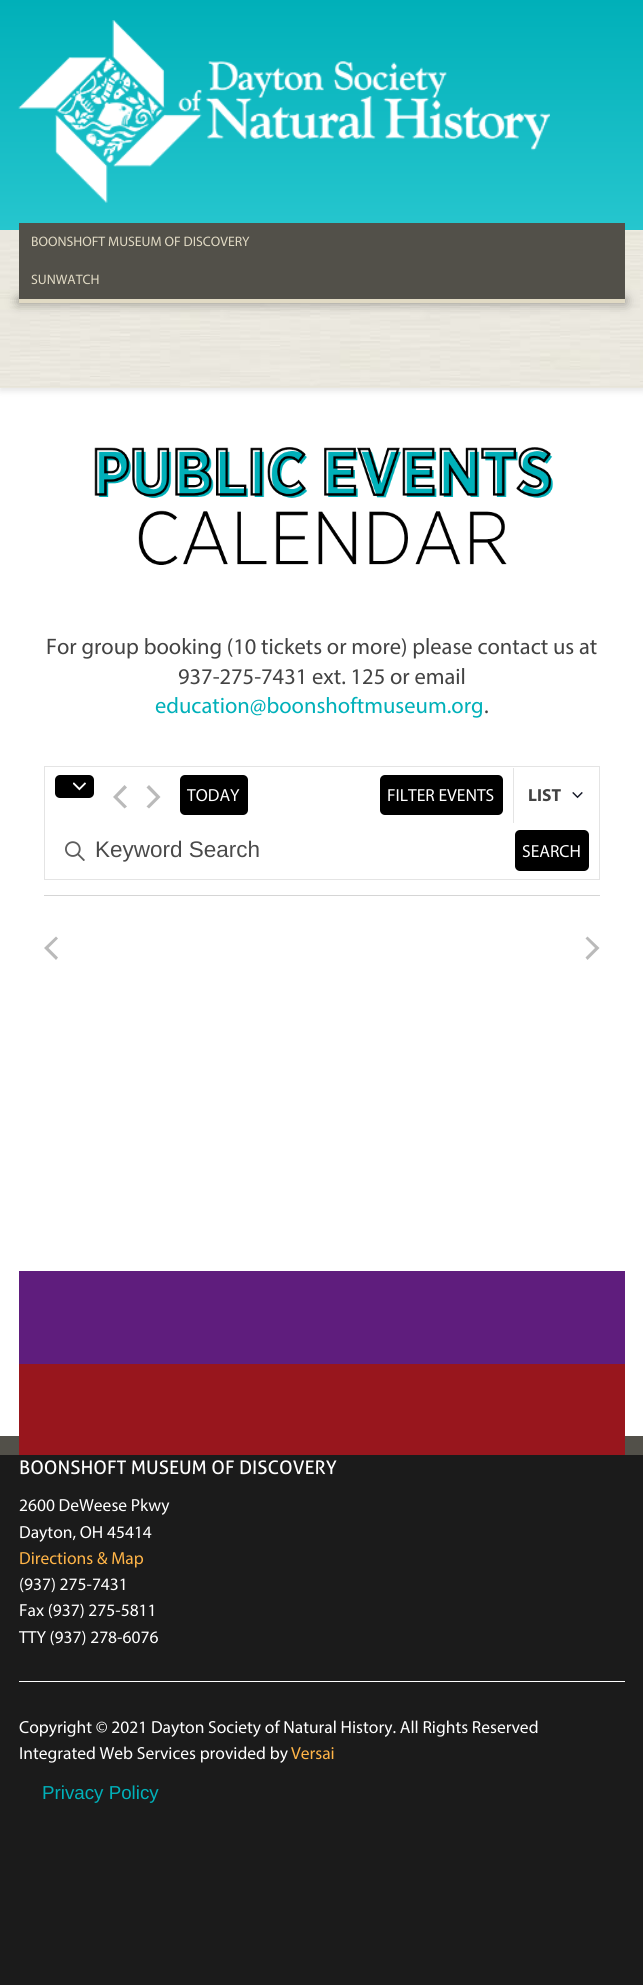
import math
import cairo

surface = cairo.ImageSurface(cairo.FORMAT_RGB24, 643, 1985)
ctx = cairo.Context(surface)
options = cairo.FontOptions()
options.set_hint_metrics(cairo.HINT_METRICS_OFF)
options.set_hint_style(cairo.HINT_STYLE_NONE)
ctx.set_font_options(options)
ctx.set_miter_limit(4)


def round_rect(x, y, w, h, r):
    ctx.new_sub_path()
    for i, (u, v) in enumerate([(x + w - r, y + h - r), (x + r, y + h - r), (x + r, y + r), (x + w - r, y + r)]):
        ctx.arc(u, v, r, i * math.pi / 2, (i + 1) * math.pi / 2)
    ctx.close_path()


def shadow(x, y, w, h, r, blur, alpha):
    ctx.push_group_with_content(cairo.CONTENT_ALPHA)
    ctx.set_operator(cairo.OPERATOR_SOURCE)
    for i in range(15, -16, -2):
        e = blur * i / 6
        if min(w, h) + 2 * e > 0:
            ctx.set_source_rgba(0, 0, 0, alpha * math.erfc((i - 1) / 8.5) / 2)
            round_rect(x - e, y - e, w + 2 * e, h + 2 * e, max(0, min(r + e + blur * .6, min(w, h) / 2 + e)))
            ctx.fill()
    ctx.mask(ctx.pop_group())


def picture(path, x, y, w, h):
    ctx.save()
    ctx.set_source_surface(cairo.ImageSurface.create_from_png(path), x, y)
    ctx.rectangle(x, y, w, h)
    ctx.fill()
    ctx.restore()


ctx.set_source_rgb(0.106, 0.106, 0.106)
ctx.paint()
ctx.set_source_rgb(1, 1, 1)
ctx.rectangle(0, 388, 643, 1048)
ctx.fill()
ctx.set_source_rgb(0, 0, 0)
shadow(0, 234, 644, 157, 0, 3, 0.1)
ctx.set_source_rgb(0.914, 0.906, 0.867)
ctx.rectangle(0, 387, 643, 1)
ctx.fill()
picture("img1.png", 0, 230, 643, 158)
ctx.set_source_rgb(0.906, 0.894, 0.847)
ctx.rectangle(0, 386, 643, 1)
ctx.fill()
gradient = cairo.LinearGradient(322, 0, 322, 230)
gradient.add_color_stop_rgba(0, 0, 0.69, 0.725, 1)
gradient.add_color_stop_rgba(1, 0.149, 0.776, 0.808, 1)
ctx.set_source(gradient)
ctx.rectangle(0, 0, 643, 230)
ctx.fill()
picture("img2.png", 18, 20, 532, 183)
ctx.set_source_rgb(0, 0, 0)
shadow(19, 299, 606, 4, 0, 6, 0.4)
ctx.set_source_rgb(0.322, 0.314, 0.286)
ctx.rectangle(19, 223, 606, 76)
ctx.fill()
ctx.select_font_face("Myriad")
ctx.set_font_size(13.75)
ctx.set_source_rgb(0.882, 0.855, 0.769)
ctx.move_to(31, 246)
ctx.show_text("BOONSHOFT MUSEUM OF DISCOVERY")
ctx.move_to(31, 284)
ctx.show_text("SUNWATCH")
ctx.rectangle(19, 299, 606, 4)
ctx.fill()
picture("img3.png", 94, 447, 460, 118)
ctx.set_font_size(22.5)
ctx.set_source_rgb(0.263, 0.263, 0.263)
ctx.move_to(46, 654)
ctx.show_text("For group booking (10 tickets or more) please contact us at")
ctx.move_to(178, 684)
ctx.show_text("937-275-7431 ext. 125 or email")
ctx.set_source_rgb(0, 0.69, 0.725)
ctx.move_to(155, 713)
ctx.show_text("education@boonshoftmuseum.org")
ctx.set_source_rgb(0.263, 0.263, 0.263)
ctx.move_to(484, 713)
ctx.show_text(".")
ctx.rectangle(44.5, 766.5, 555, 113)
ctx.set_source_rgb(0.894, 0.894, 0.894)
ctx.set_line_width(1)
ctx.stroke()
ctx.set_source_rgb(0, 0, 0)
round_rect(55, 775, 39, 23, 5)
ctx.fill()
picture("img4.png", 73, 782, 13, 9)
ctx.set_source_rgb(0.729, 0.729, 0.729)
ctx.new_path()
ctx.move_to(127, 806.5)
ctx.line_to(124.5, 808.5)
ctx.line_to(113, 797)
ctx.line_to(124.5, 785)
ctx.line_to(127, 787.5)
ctx.line_to(117.5, 797)
ctx.close_path()
ctx.move_to(146.5, 787.5)
ctx.line_to(149, 785)
ctx.line_to(160.5, 797)
ctx.line_to(149, 808.5)
ctx.line_to(146.5, 806.5)
ctx.line_to(156, 797)
ctx.close_path()
ctx.fill()
ctx.set_source_rgb(0, 0, 0)
round_rect(180, 775, 68, 40, 5)
ctx.fill()
ctx.set_font_size(17.5)
ctx.set_source_rgb(1, 1, 1)
ctx.move_to(187, 801)
ctx.show_text("TODAY")
ctx.set_source_rgb(0.894, 0.894, 0.894)
ctx.rectangle(513, 768, 1, 55)
ctx.fill()
ctx.set_source_rgb(0, 0, 0)
round_rect(380, 775, 123, 40, 5)
ctx.fill()
ctx.set_source_rgb(1, 1, 1)
ctx.move_to(387, 801)
ctx.show_text("FILTER EVENTS")
ctx.select_font_face("Myriad", cairo.FONT_SLANT_NORMAL, cairo.FONT_WEIGHT_BOLD)
ctx.set_source_rgb(0.263, 0.263, 0.263)
ctx.move_to(528, 801)
ctx.show_text("LIST")
picture("img5.png", 572, 792, 11, 7)
picture("img6.png", 65, 841, 20, 20)
ctx.select_font_face("Liberation Sans")
ctx.set_font_size(22.5)
ctx.set_source_rgb(0.29, 0.29, 0.29)
ctx.move_to(95, 857)
ctx.show_text("Keyword Search")
ctx.set_source_rgb(0, 0, 0)
round_rect(515, 830, 74, 41, 5)
ctx.fill()
ctx.select_font_face("Myriad")
ctx.set_font_size(17.5)
ctx.set_source_rgb(1, 1, 1)
ctx.move_to(522, 857)
ctx.show_text("SEARCH")
ctx.set_source_rgb(0.835, 0.835, 0.835)
ctx.rectangle(44, 895, 556, 1)
ctx.fill()
ctx.set_source_rgb(0.729, 0.729, 0.729)
ctx.new_path()
ctx.move_to(58, 957.5)
ctx.line_to(56, 960)
ctx.line_to(44, 948)
ctx.line_to(56, 936.5)
ctx.line_to(58, 938.5)
ctx.line_to(48.5, 948)
ctx.close_path()
ctx.fill()
ctx.new_path()
ctx.move_to(585.5, 938.5)
ctx.line_to(587.5, 936.5)
ctx.line_to(599.5, 948)
ctx.line_to(587.5, 960)
ctx.line_to(585.5, 957.5)
ctx.line_to(595, 948)
ctx.close_path()
ctx.fill()
ctx.set_source_rgb(0.373, 0.114, 0.49)
ctx.rectangle(19, 1271, 606, 93)
ctx.fill()
ctx.set_source_rgb(0.322, 0.314, 0.286)
ctx.rectangle(0, 1436, 643, 19)
ctx.fill()
ctx.set_source_rgb(0.596, 0.086, 0.114)
ctx.rectangle(19, 1364, 606, 91)
ctx.fill()
ctx.select_font_face("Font")
ctx.set_font_size(18.75)
ctx.set_source_rgb(1, 1, 1)
ctx.move_to(19, 1474)
ctx.show_text("BOONSHOFT MUSEUM OF DISCOVERY")
ctx.select_font_face("Myriad")
ctx.set_font_size(17.5)
ctx.move_to(19, 1511)
ctx.show_text("2600 DeWeese Pkwy")
ctx.move_to(19, 1538)
ctx.show_text("Dayton, OH 45414")
ctx.set_source_rgb(1, 0.706, 0.278)
ctx.move_to(19, 1564)
ctx.show_text("Directions & Map")
ctx.set_source_rgb(1, 1, 1)
ctx.move_to(19, 1590)
ctx.show_text("(937) 275-7431")
ctx.move_to(19, 1616)
ctx.show_text("Fax (937) 275-5811")
ctx.move_to(19, 1643)
ctx.show_text("TTY (937) 278-6076")
ctx.rectangle(19, 1681, 606, 1)
ctx.fill()
ctx.move_to(19, 1733)
ctx.show_text("Copyright © 2021 Dayton Society of Natural History. All Rights Reserved")
ctx.move_to(19, 1759)
ctx.show_text("Integrated Web Services provided by")
ctx.set_source_rgb(1, 0.706, 0.278)
ctx.move_to(291, 1759)
ctx.show_text("Versai")
ctx.select_font_face("Liberation Sans")
ctx.set_font_size(18.75)
ctx.set_source_rgb(0, 0.69, 0.725)
ctx.move_to(42, 1799)
ctx.show_text("Privacy Policy")
surface.write_to_png("page.png")
